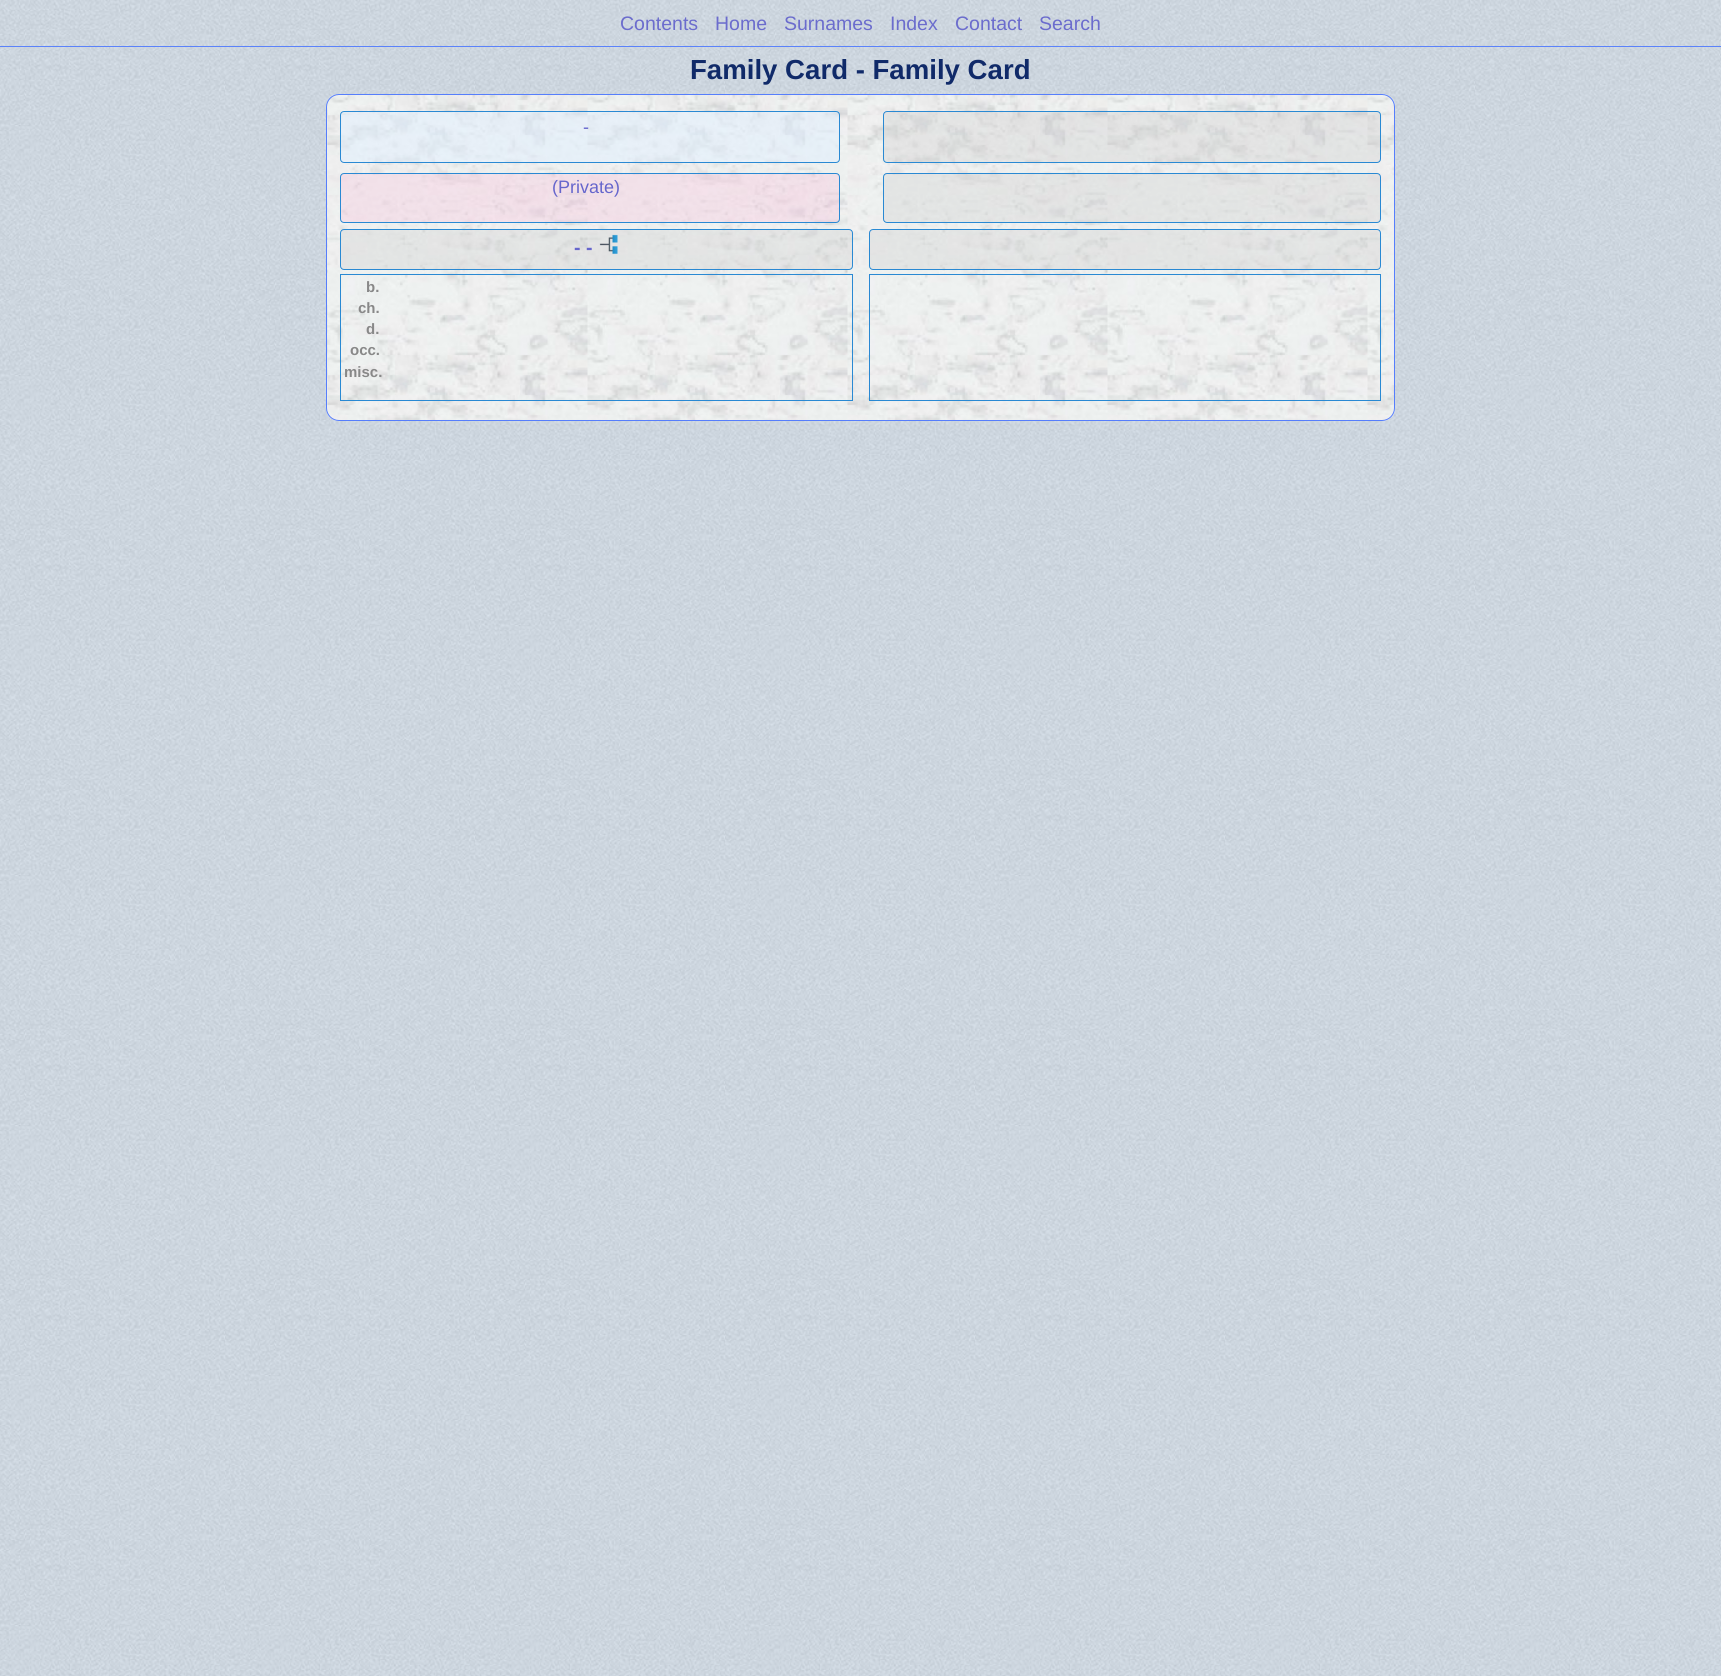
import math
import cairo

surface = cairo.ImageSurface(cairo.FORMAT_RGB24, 1721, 1676)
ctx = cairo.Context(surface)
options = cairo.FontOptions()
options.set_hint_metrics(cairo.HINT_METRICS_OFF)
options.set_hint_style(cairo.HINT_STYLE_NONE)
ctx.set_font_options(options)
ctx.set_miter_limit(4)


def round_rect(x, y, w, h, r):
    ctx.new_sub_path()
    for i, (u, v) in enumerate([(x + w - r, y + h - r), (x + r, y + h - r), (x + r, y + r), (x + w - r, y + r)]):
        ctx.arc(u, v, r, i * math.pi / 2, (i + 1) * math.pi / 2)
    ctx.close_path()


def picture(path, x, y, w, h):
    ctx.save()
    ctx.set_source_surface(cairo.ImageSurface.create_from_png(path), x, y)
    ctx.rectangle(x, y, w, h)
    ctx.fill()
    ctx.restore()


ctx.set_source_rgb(1, 1, 1)
ctx.paint()
picture("img1.png", 0, 0, 1721, 1676)
picture("img2.png", 0, 46, 1721, 1)
ctx.set_source_rgba(0.337, 0.494, 0.988, 0.95)
ctx.rectangle(0, 46, 1721, 1)
ctx.fill()
ctx.select_font_face("Liberation Sans")
ctx.set_font_size(19.5)
ctx.set_source_rgb(0.42, 0.424, 0.804)
ctx.move_to(620, 30)
ctx.show_text("Contents")
ctx.move_to(715, 30)
ctx.show_text("Home")
ctx.move_to(784, 30)
ctx.show_text("Surnames")
ctx.move_to(890, 30)
ctx.show_text("Index")
ctx.move_to(955, 30)
ctx.show_text("Contact")
ctx.move_to(1039, 30)
ctx.show_text("Search")
ctx.select_font_face("Liberation Sans", cairo.FONT_SLANT_NORMAL, cairo.FONT_WEIGHT_BOLD)
ctx.set_font_size(27.6)
ctx.set_source_rgb(0.063, 0.165, 0.412)
ctx.move_to(690, 79)
ctx.show_text("Family Card - Family Card")
picture("img3.png", 326, 94, 1069, 327)
round_rect(326.5, 94.5, 1068, 326, 12.5)
ctx.set_source_rgb(0.337, 0.494, 0.988)
ctx.set_line_width(1)
ctx.stroke()
ctx.set_source_rgba(0.878, 0.937, 0.996, 0.51)
round_rect(340.5, 111.5, 499, 51, 3.5)
ctx.fill_preserve()
ctx.set_source_rgb(0.161, 0.537, 0.827)
ctx.stroke()
ctx.select_font_face("Liberation Sans")
ctx.set_font_size(18)
ctx.set_source_rgb(0.4, 0.4, 0.8)
ctx.move_to(583, 133)
ctx.show_text("-")
ctx.set_source_rgba(0.784, 0.784, 0.784, 0.3)
round_rect(883.5, 111.5, 497, 51, 3.5)
ctx.fill_preserve()
ctx.set_source_rgb(0.161, 0.537, 0.827)
ctx.stroke()
ctx.set_source_rgba(0.988, 0.718, 0.839, 0.28)
round_rect(340.5, 173.5, 499, 49, 3.5)
ctx.fill_preserve()
ctx.set_source_rgb(0.161, 0.537, 0.827)
ctx.stroke()
ctx.set_source_rgb(0.4, 0.4, 0.8)
ctx.move_to(552, 193)
ctx.show_text("(Private)")
ctx.set_source_rgba(0.784, 0.784, 0.784, 0.3)
round_rect(883.5, 173.5, 497, 49, 3.5)
ctx.fill_preserve()
ctx.set_source_rgb(0.161, 0.537, 0.827)
ctx.stroke()
ctx.set_source_rgba(0.784, 0.784, 0.784, 0.3)
round_rect(340.5, 229.5, 512, 40, 3.5)
ctx.fill_preserve()
ctx.set_source_rgb(0.161, 0.537, 0.827)
ctx.stroke()
ctx.select_font_face("Liberation Sans", cairo.FONT_SLANT_NORMAL, cairo.FONT_WEIGHT_BOLD)
ctx.set_font_size(19.5)
ctx.set_source_rgb(0.4, 0.4, 0.8)
ctx.move_to(574, 254)
ctx.show_text("- -")
picture("img4.png", 599, 234, 19, 20)
ctx.set_source_rgba(0.784, 0.784, 0.784, 0.3)
round_rect(869.5, 229.5, 511, 40, 3.5)
ctx.fill_preserve()
ctx.set_source_rgb(0.161, 0.537, 0.827)
ctx.stroke()
ctx.rectangle(340.5, 274.5, 512, 126)
ctx.stroke()
ctx.set_font_size(15)
ctx.set_source_rgb(0.533, 0.533, 0.533)
ctx.move_to(366, 292)
ctx.show_text("b.")
ctx.move_to(358, 313)
ctx.show_text("ch.")
ctx.move_to(366, 334)
ctx.show_text("d.")
ctx.move_to(350, 355)
ctx.show_text("occ.")
ctx.move_to(344, 377)
ctx.show_text("misc.")
ctx.rectangle(869.5, 274.5, 511, 126)
ctx.set_source_rgb(0.161, 0.537, 0.827)
ctx.stroke()
surface.write_to_png("page.png")
